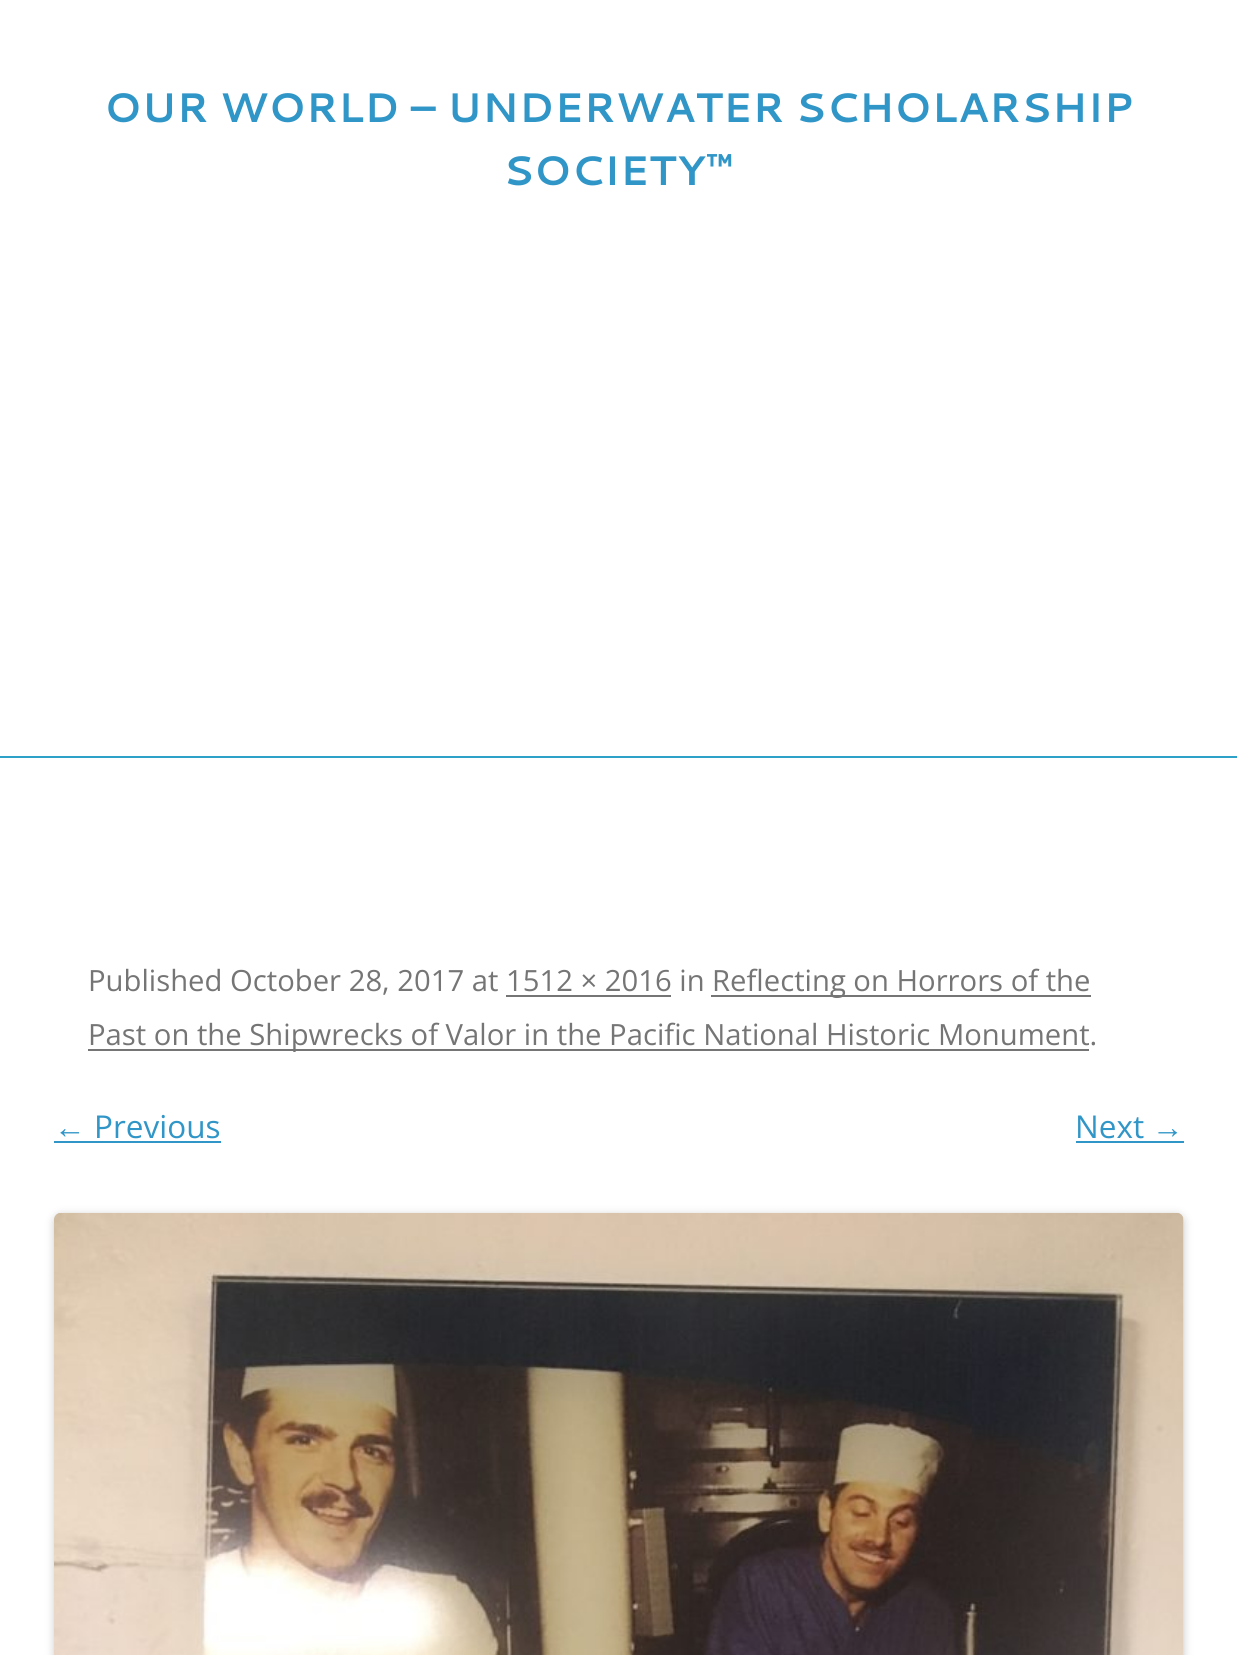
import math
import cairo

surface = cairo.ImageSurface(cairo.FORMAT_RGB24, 1237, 1655)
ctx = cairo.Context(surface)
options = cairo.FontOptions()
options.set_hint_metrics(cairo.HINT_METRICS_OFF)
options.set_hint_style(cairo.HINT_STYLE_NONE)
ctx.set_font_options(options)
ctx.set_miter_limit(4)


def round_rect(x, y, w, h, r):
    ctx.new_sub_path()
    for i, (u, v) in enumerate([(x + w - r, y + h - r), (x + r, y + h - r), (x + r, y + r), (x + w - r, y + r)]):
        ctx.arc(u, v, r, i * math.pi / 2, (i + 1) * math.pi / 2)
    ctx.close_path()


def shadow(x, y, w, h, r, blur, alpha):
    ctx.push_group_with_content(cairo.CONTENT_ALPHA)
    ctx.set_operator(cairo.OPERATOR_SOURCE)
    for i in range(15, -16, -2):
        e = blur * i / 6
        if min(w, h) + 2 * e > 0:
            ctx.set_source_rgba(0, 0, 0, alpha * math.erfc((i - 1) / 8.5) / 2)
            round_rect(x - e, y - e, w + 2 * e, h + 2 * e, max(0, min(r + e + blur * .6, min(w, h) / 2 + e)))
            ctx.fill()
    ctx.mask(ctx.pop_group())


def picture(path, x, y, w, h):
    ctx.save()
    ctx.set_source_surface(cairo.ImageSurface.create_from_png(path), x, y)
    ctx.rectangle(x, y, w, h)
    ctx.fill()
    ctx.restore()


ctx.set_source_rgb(1, 1, 1)
ctx.paint()
ctx.select_font_face("Cantarell", cairo.FONT_SLANT_NORMAL, cairo.FONT_WEIGHT_BOLD)
ctx.set_font_size(41.25)
ctx.set_source_rgb(0.188, 0.584, 0.78)
ctx.move_to(104, 122)
ctx.show_text("OUR WORLD – UNDERWATER SCHOLARSHIP")
ctx.move_to(503, 185)
ctx.show_text("SOCIETY™")
ctx.set_source_rgb(0.176, 0.631, 0.78)
ctx.rectangle(0, 756, 1237, 2)
ctx.fill()
ctx.select_font_face("Open Sans")
ctx.set_font_size(29.25)
ctx.set_source_rgb(0.459, 0.459, 0.459)
ctx.move_to(88, 991)
ctx.show_text("Published October 28, 2017 at 1512 × 2016 in")
ctx.rectangle(711, 995, 380, 2)
ctx.fill()
ctx.move_to(712, 991)
ctx.show_text("Reflecting on Horrors of the")
ctx.rectangle(506, 995, 165, 2)
ctx.fill()
ctx.rectangle(88, 1049, 1001, 2)
ctx.fill()
ctx.move_to(88, 1045)
ctx.show_text("Past on the Shipwrecks of Valor in the Pacific National Historic Monument.")
ctx.select_font_face("Liberation Sans")
ctx.set_font_size(31.5)
ctx.set_source_rgb(0.188, 0.584, 0.78)
ctx.move_to(54, 1138)
ctx.show_text("←")
ctx.rectangle(54, 1141, 167, 2)
ctx.fill()
ctx.select_font_face("Open Sans")
ctx.move_to(94, 1138)
ctx.show_text("Previous")
ctx.move_to(1075, 1138)
ctx.show_text("Next")
ctx.select_font_face("Liberation Sans")
ctx.move_to(1152, 1138)
ctx.show_text("→")
ctx.rectangle(1076, 1141, 108, 2)
ctx.fill()
ctx.set_source_rgb(0, 0, 0)
shadow(54, 1215, 1130, 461, 7, 4.5, 0.2)
picture("img1.png", 54, 1212, 1130, 443)
surface.write_to_png("page.png")
